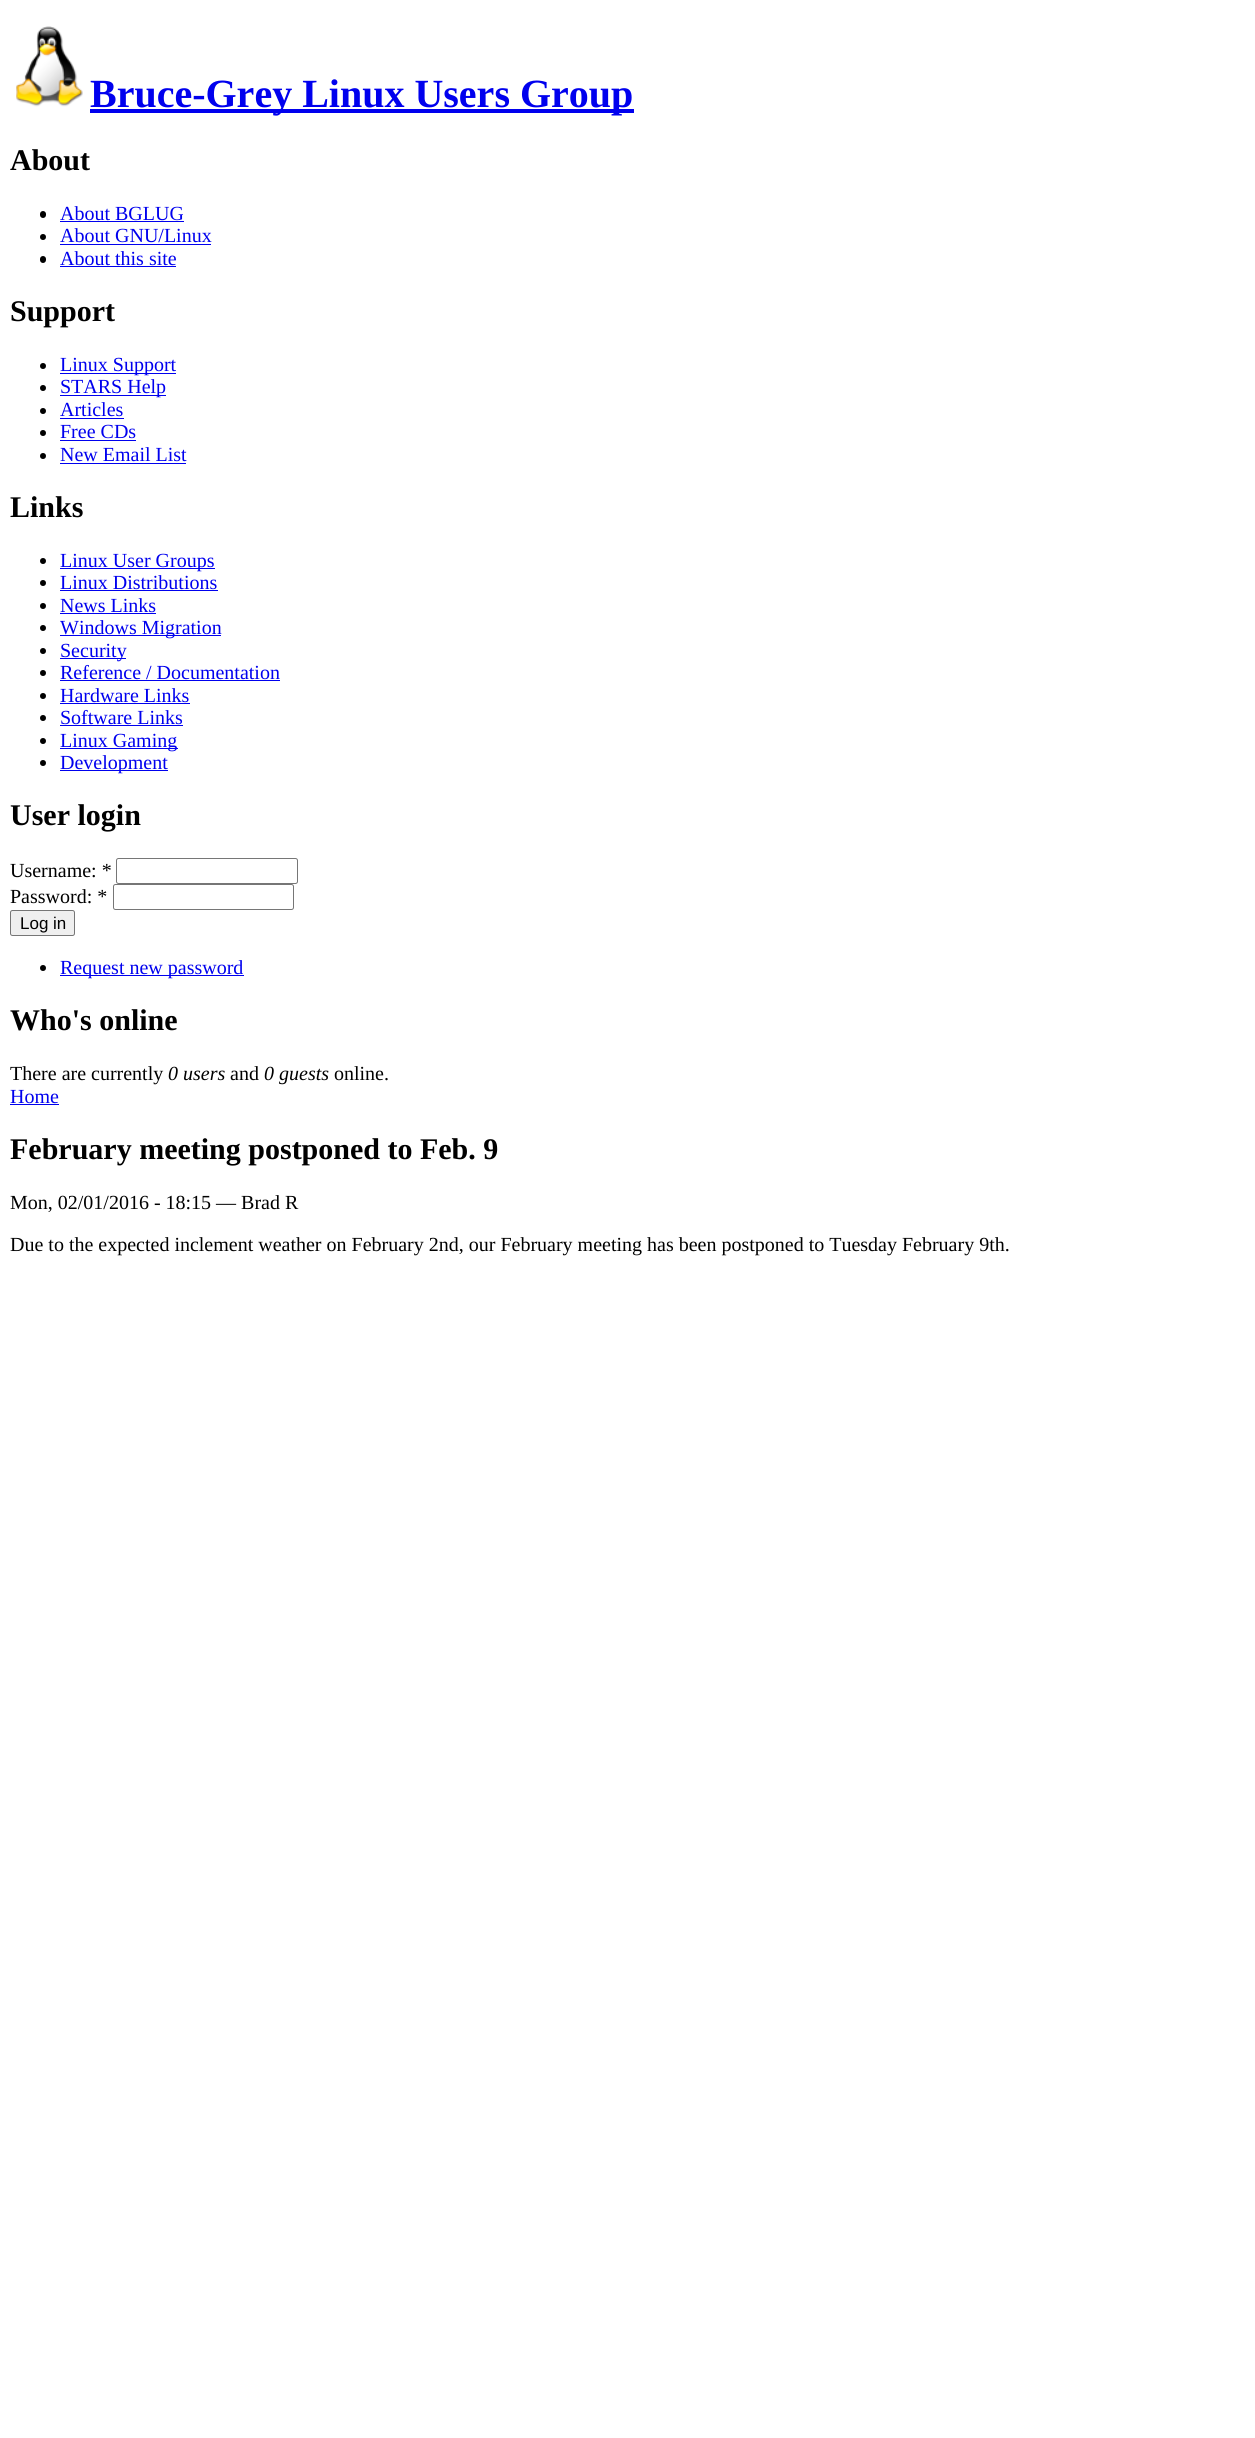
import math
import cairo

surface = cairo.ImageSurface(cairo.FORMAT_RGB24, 1255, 2438)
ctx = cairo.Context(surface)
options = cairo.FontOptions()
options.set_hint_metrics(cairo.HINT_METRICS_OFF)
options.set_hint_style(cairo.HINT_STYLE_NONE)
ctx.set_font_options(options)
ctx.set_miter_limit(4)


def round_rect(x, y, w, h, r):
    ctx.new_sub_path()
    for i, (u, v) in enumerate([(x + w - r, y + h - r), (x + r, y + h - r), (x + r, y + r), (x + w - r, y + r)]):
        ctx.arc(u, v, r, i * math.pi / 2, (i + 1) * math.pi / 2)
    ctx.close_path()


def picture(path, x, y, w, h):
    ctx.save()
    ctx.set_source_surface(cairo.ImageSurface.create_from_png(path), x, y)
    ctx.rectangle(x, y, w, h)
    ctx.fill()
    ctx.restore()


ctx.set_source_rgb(1, 1, 1)
ctx.paint()
picture("img1.png", 16, 26, 67, 81)
ctx.set_source_rgb(0, 0, 0.933)
ctx.rectangle(90, 109, 544, 4)
ctx.fill()
ctx.select_font_face("Liberation Serif", cairo.FONT_SLANT_NORMAL, cairo.FONT_WEIGHT_BOLD)
ctx.set_font_size(40)
ctx.move_to(90, 107)
ctx.show_text("Bruce-Grey Linux Users Group")
ctx.set_font_size(30)
ctx.set_source_rgb(0, 0, 0)
ctx.move_to(10, 170)
ctx.show_text("About")
round_rect(40, 211, 6, 7, 3)
ctx.fill()
ctx.select_font_face("Liberation Serif")
ctx.set_font_size(20)
ctx.set_source_rgb(0, 0, 0.933)
ctx.move_to(60, 220)
ctx.show_text("About BGLUG")
ctx.rectangle(60, 221, 124, 1)
ctx.fill()
ctx.set_source_rgb(0, 0, 0)
ctx.arc(43, 237, 3, 0, 2 * math.pi)
ctx.fill()
ctx.set_source_rgb(0, 0, 0.933)
ctx.move_to(60, 242)
ctx.show_text("About GNU/Linux")
ctx.rectangle(60, 244, 151, 1)
ctx.fill()
ctx.set_source_rgb(0, 0, 0)
round_rect(40, 256, 6, 7, 3)
ctx.fill()
ctx.set_source_rgb(0, 0, 0.933)
ctx.move_to(60, 265)
ctx.show_text("About this site")
ctx.rectangle(60, 266, 116, 1)
ctx.fill()
ctx.select_font_face("Liberation Serif", cairo.FONT_SLANT_NORMAL, cairo.FONT_WEIGHT_BOLD)
ctx.set_font_size(30)
ctx.set_source_rgb(0, 0, 0)
ctx.move_to(10, 321)
ctx.show_text("Support")
ctx.new_path()
ctx.arc(43, 366, 3, 0, 2 * math.pi)
ctx.fill()
ctx.set_source_rgb(0, 0, 0.933)
ctx.rectangle(60, 373, 116, 1)
ctx.fill()
ctx.select_font_face("Liberation Serif")
ctx.set_font_size(20)
ctx.move_to(60, 371)
ctx.show_text("Linux Support")
ctx.set_source_rgb(0, 0, 0)
ctx.new_path()
ctx.arc(43, 388, 3, 0, 2 * math.pi)
ctx.fill()
ctx.set_source_rgb(0, 0, 0.933)
ctx.rectangle(60, 395, 106, 1)
ctx.fill()
ctx.move_to(60, 393)
ctx.show_text("STARS Help")
ctx.set_source_rgb(0, 0, 0)
ctx.new_path()
ctx.arc(43, 411, 3, 0, 2 * math.pi)
ctx.fill()
ctx.set_source_rgb(0, 0, 0.933)
ctx.move_to(60, 416)
ctx.show_text("Articles")
ctx.rectangle(60, 418, 64, 1)
ctx.fill()
ctx.set_source_rgb(0, 0, 0)
ctx.arc(43, 433, 3, 0, 2 * math.pi)
ctx.fill()
ctx.set_source_rgb(0, 0, 0.933)
ctx.move_to(60, 438)
ctx.show_text("Free CDs")
ctx.rectangle(60, 440, 76, 1)
ctx.fill()
ctx.set_source_rgb(0, 0, 0)
ctx.arc(43, 456, 3, 0, 2 * math.pi)
ctx.fill()
ctx.set_source_rgb(0, 0, 0.933)
ctx.move_to(60, 461)
ctx.show_text("New Email List")
ctx.rectangle(60, 463, 126, 1)
ctx.fill()
ctx.select_font_face("Liberation Serif", cairo.FONT_SLANT_NORMAL, cairo.FONT_WEIGHT_BOLD)
ctx.set_font_size(30)
ctx.set_source_rgb(0, 0, 0)
ctx.move_to(10, 517)
ctx.show_text("Links")
ctx.new_path()
ctx.arc(43, 561, 3, 0, 2 * math.pi)
ctx.fill()
ctx.set_source_rgb(0, 0, 0.933)
ctx.rectangle(60, 568, 155, 1)
ctx.fill()
ctx.select_font_face("Liberation Serif")
ctx.set_font_size(20)
ctx.move_to(60, 567)
ctx.show_text("Linux User Groups")
ctx.set_source_rgb(0, 0, 0)
ctx.new_path()
ctx.arc(43, 583, 3, 0, 2 * math.pi)
ctx.fill()
ctx.set_source_rgb(0, 0, 0.933)
ctx.move_to(60, 589)
ctx.show_text("Linux Distributions")
ctx.rectangle(60, 590, 158, 1)
ctx.fill()
ctx.set_source_rgb(0, 0, 0)
ctx.arc(43, 606, 3, 0, 2 * math.pi)
ctx.fill()
ctx.set_source_rgb(0, 0, 0.933)
ctx.move_to(60, 612)
ctx.show_text("News Links")
ctx.rectangle(60, 613, 96, 1)
ctx.fill()
ctx.set_source_rgb(0, 0, 0)
ctx.arc(43, 628, 3, 0, 2 * math.pi)
ctx.fill()
ctx.set_source_rgb(0, 0, 0.933)
ctx.rectangle(60, 635, 161, 1)
ctx.fill()
ctx.move_to(60, 634)
ctx.show_text("Windows Migration")
ctx.set_source_rgb(0, 0, 0)
ctx.new_path()
ctx.arc(43, 651, 3, 0, 2 * math.pi)
ctx.fill()
ctx.set_source_rgb(0, 0, 0.933)
ctx.rectangle(60, 658, 66, 1)
ctx.fill()
ctx.move_to(60, 657)
ctx.show_text("Security")
ctx.set_source_rgb(0, 0, 0)
ctx.new_path()
ctx.arc(43, 673, 3, 0, 2 * math.pi)
ctx.fill()
ctx.set_source_rgb(0, 0, 0.933)
ctx.move_to(60, 679)
ctx.show_text("Reference / Documentation")
ctx.rectangle(60, 680, 220, 1)
ctx.fill()
ctx.set_source_rgb(0, 0, 0)
ctx.arc(43, 696, 3, 0, 2 * math.pi)
ctx.fill()
ctx.set_source_rgb(0, 0, 0.933)
ctx.move_to(60, 702)
ctx.show_text("Hardware Links")
ctx.rectangle(60, 703, 130, 1)
ctx.fill()
ctx.set_source_rgb(0, 0, 0)
ctx.arc(43, 718, 3, 0, 2 * math.pi)
ctx.fill()
ctx.set_source_rgb(0, 0, 0.933)
ctx.move_to(60, 724)
ctx.show_text("Software Links")
ctx.rectangle(60, 725, 123, 1)
ctx.fill()
ctx.set_source_rgb(0, 0, 0)
ctx.arc(43, 741, 3, 0, 2 * math.pi)
ctx.fill()
ctx.set_source_rgb(0, 0, 0.933)
ctx.rectangle(60, 748, 118, 1)
ctx.fill()
ctx.move_to(60, 747)
ctx.show_text("Linux Gaming")
ctx.set_source_rgb(0, 0, 0)
ctx.new_path()
ctx.arc(43, 763, 3, 0, 2 * math.pi)
ctx.fill()
ctx.set_source_rgb(0, 0, 0.933)
ctx.rectangle(60, 770, 108, 1)
ctx.fill()
ctx.move_to(60, 769)
ctx.show_text("Development")
ctx.select_font_face("Liberation Serif", cairo.FONT_SLANT_NORMAL, cairo.FONT_WEIGHT_BOLD)
ctx.set_font_size(30)
ctx.set_source_rgb(0, 0, 0)
ctx.move_to(10, 825)
ctx.show_text("User login")
ctx.select_font_face("Liberation Serif")
ctx.set_font_size(20)
ctx.move_to(10, 877)
ctx.show_text("Username: *")
round_rect(116.5, 858.5, 181, 25, 2)
ctx.set_source_rgb(0.463, 0.463, 0.463)
ctx.set_line_width(1)
ctx.stroke()
ctx.set_source_rgb(0, 0, 0)
ctx.move_to(10, 903)
ctx.show_text("Password: *")
round_rect(113.5, 884.5, 180, 25, 2)
ctx.set_source_rgb(0.463, 0.463, 0.463)
ctx.stroke()
ctx.set_source_rgb(0.937, 0.937, 0.937)
round_rect(10.5, 910.5, 64, 25, 2)
ctx.fill_preserve()
ctx.set_source_rgb(0.463, 0.463, 0.463)
ctx.stroke()
ctx.select_font_face("Liberation Sans")
ctx.set_font_size(17)
ctx.set_source_rgb(0, 0, 0)
ctx.move_to(20, 929)
ctx.show_text("Log in")
ctx.new_path()
ctx.arc(43, 968, 3, 0, 2 * math.pi)
ctx.fill()
ctx.set_source_rgb(0, 0, 0.933)
ctx.rectangle(60, 975, 184, 1)
ctx.fill()
ctx.select_font_face("Liberation Serif")
ctx.set_font_size(20)
ctx.move_to(60, 974)
ctx.show_text("Request new password")
ctx.select_font_face("Liberation Serif", cairo.FONT_SLANT_NORMAL, cairo.FONT_WEIGHT_BOLD)
ctx.set_font_size(30)
ctx.set_source_rgb(0, 0, 0)
ctx.move_to(10, 1030)
ctx.show_text("Who's online")
ctx.select_font_face("Liberation Serif")
ctx.set_font_size(20)
ctx.move_to(10, 1080)
ctx.show_text("There are currently")
ctx.select_font_face("Liberation Serif", cairo.FONT_SLANT_ITALIC)
ctx.move_to(168, 1080)
ctx.show_text("0 users")
ctx.select_font_face("Liberation Serif")
ctx.move_to(230, 1080)
ctx.show_text("and")
ctx.select_font_face("Liberation Serif", cairo.FONT_SLANT_ITALIC)
ctx.move_to(264, 1080)
ctx.show_text("0 guests")
ctx.select_font_face("Liberation Serif")
ctx.move_to(334, 1080)
ctx.show_text("online.")
ctx.set_source_rgb(0, 0, 0.933)
ctx.move_to(10, 1103)
ctx.show_text("Home")
ctx.rectangle(10, 1104, 49, 1)
ctx.fill()
ctx.select_font_face("Liberation Serif", cairo.FONT_SLANT_NORMAL, cairo.FONT_WEIGHT_BOLD)
ctx.set_font_size(30)
ctx.set_source_rgb(0, 0, 0)
ctx.move_to(10, 1159)
ctx.show_text("February meeting postponed to Feb. 9")
ctx.select_font_face("Liberation Serif")
ctx.set_font_size(20)
ctx.move_to(10, 1209)
ctx.show_text("Mon, 02/01/2016 - 18:15 — Brad R")
ctx.move_to(10, 1251)
ctx.show_text("Due to the expected inclement weather on February 2nd, our February meeting has been postponed to Tuesday February 9th.")
surface.write_to_png("page.png")
